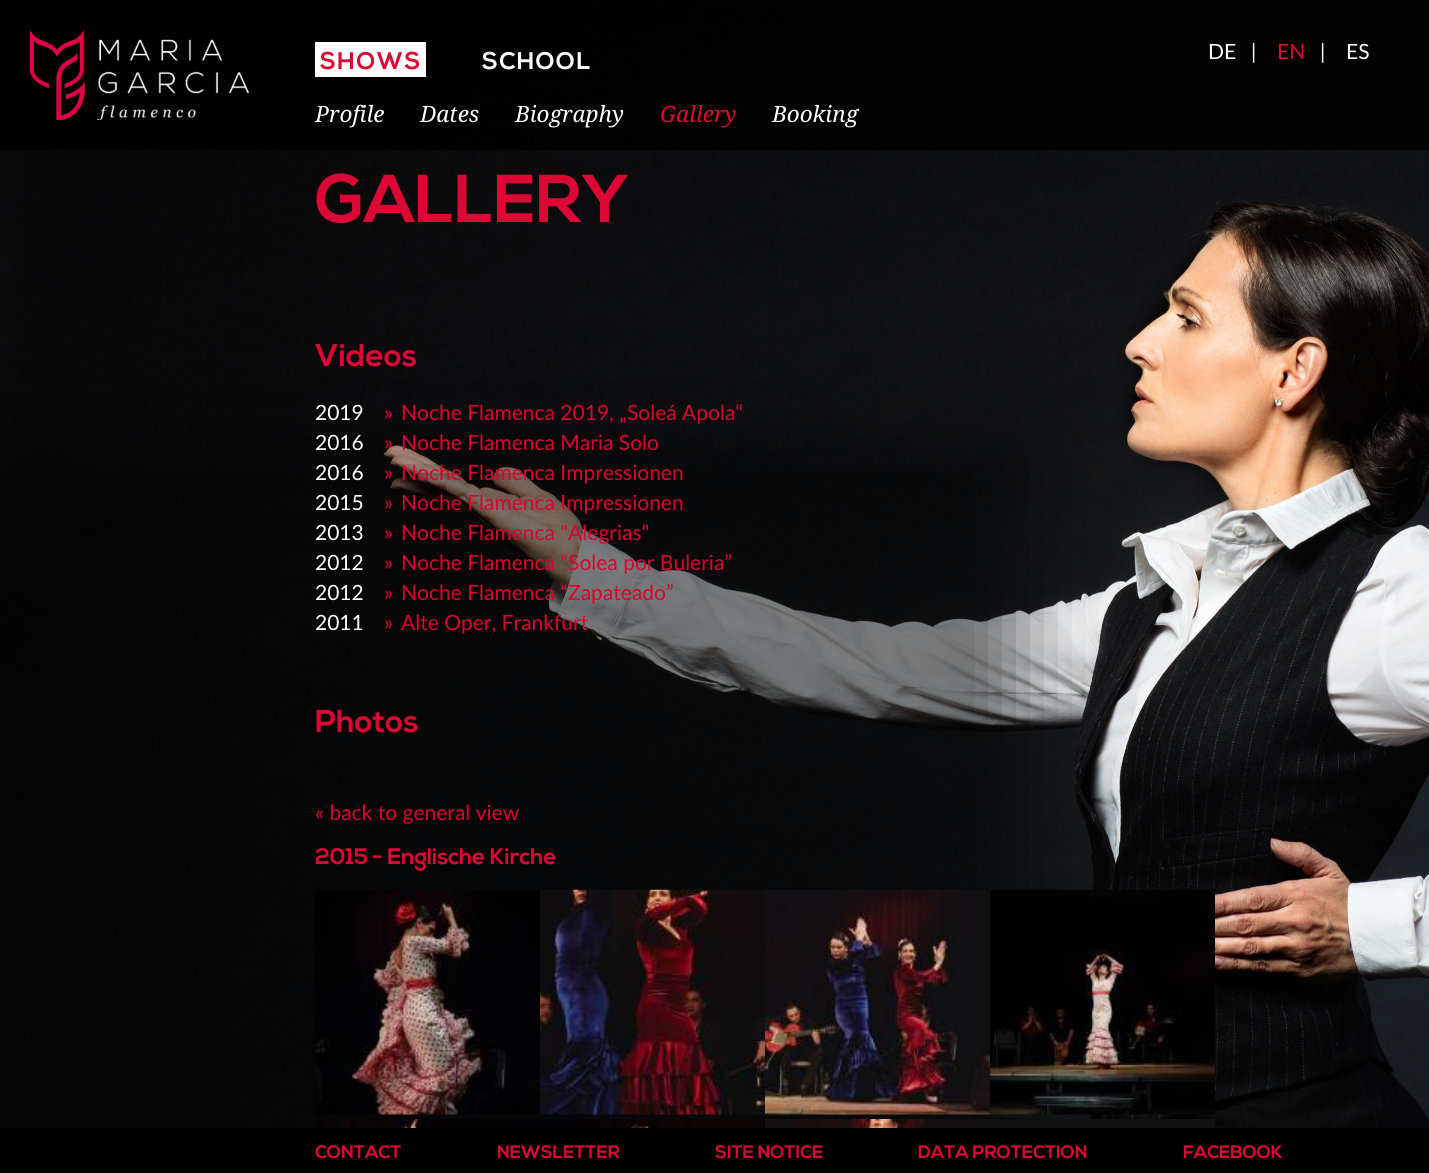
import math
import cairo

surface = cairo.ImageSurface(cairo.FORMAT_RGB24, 1429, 1173)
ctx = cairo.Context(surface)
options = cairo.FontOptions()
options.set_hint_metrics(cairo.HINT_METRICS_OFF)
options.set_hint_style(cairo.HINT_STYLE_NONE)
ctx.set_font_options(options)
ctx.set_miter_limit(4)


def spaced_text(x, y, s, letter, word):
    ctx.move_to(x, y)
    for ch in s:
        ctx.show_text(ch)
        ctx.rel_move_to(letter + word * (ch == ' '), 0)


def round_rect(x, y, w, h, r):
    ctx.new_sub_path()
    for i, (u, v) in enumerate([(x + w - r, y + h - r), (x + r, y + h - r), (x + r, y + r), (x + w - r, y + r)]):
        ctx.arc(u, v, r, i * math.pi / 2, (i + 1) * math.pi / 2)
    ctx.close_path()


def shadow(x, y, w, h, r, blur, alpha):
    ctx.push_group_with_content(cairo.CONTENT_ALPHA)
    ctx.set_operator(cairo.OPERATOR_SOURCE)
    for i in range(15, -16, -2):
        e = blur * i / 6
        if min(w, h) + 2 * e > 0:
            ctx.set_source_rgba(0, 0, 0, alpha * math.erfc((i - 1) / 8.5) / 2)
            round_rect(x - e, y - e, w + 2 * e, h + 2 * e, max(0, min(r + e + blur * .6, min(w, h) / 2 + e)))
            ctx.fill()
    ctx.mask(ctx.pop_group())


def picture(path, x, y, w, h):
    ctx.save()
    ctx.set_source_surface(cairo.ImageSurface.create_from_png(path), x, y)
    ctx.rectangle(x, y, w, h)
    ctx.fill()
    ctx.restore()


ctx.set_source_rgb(1, 1, 1)
ctx.paint()
picture("img1.png", 0, 0, 1429, 1128)
ctx.set_source_rgba(0, 0, 0, 0.85)
ctx.rectangle(0, 0, 1429, 150)
ctx.fill()
picture("img2.png", 30, 30, 219, 90)
ctx.set_source_rgb(1, 1, 1)
ctx.rectangle(315, 42, 111, 35)
ctx.fill()
ctx.select_font_face("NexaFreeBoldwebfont", cairo.FONT_SLANT_NORMAL, cairo.FONT_WEIGHT_BOLD)
ctx.set_font_size(24)
ctx.set_source_rgb(0.863, 0.031, 0.204)
spaced_text(320, 69, "SHOWS", 1.5, 0)
ctx.set_source_rgb(1, 1, 1)
spaced_text(482, 69, "SCHOOL", 1.5, 0)
ctx.select_font_face("Lato")
ctx.set_font_size(21)
ctx.move_to(1208, 59)
ctx.show_text("DE")
ctx.move_to(1251, 59)
ctx.show_text("|")
ctx.set_source_rgb(0.863, 0.031, 0.204)
ctx.move_to(1277, 59)
ctx.show_text("EN")
ctx.set_source_rgb(1, 1, 1)
ctx.move_to(1320, 59)
ctx.show_text("|")
ctx.move_to(1346, 59)
ctx.show_text("ES")
ctx.select_font_face("Droid Serif", cairo.FONT_SLANT_ITALIC)
ctx.set_font_size(22.5)
ctx.move_to(315, 122)
ctx.show_text("Profile")
ctx.move_to(420, 122)
ctx.show_text("Dates")
ctx.move_to(515, 122)
ctx.show_text("Biography")
ctx.set_source_rgb(0.863, 0.031, 0.204)
ctx.move_to(660, 122)
ctx.show_text("Gallery")
ctx.set_source_rgb(1, 1, 1)
ctx.move_to(772, 122)
ctx.show_text("Booking")
ctx.select_font_face("NexaFreeBoldwebfont", cairo.FONT_SLANT_NORMAL, cairo.FONT_WEIGHT_BOLD)
ctx.set_font_size(67.5)
ctx.set_source_rgb(0.863, 0.031, 0.204)
ctx.move_to(315, 222)
ctx.show_text("GALLERY")
ctx.save()
ctx.set_fill_rule(cairo.FILL_RULE_EVEN_ODD)
ctx.new_path()
ctx.move_to(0, 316)
ctx.line_to(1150, 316)
ctx.line_to(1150, 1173)
ctx.line_to(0, 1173)
ctx.close_path()
ctx.move_to(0, 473)
ctx.line_to(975, 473)
ctx.line_to(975, 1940)
ctx.line_to(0, 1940)
ctx.close_path()
ctx.clip()
ctx.set_source_rgb(0, 0, 0)
shadow(-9, 443, 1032, 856, 0, 42, 0.56)
ctx.restore()
ctx.set_font_size(31.5)
ctx.move_to(315, 366)
ctx.show_text("Videos")
ctx.select_font_face("Lato")
ctx.set_font_size(21)
ctx.set_source_rgb(1, 1, 1)
ctx.move_to(315, 420)
ctx.show_text("2019")
ctx.set_source_rgb(0.859, 0.004, 0.192)
ctx.move_to(384, 420)
ctx.show_text("»")
ctx.move_to(401, 420)
ctx.show_text("Noche Flamenca 2019, „Soleá Apola“")
ctx.set_source_rgb(1, 1, 1)
ctx.move_to(315, 450)
ctx.show_text("2016")
ctx.set_source_rgb(0.859, 0.004, 0.192)
ctx.move_to(384, 450)
ctx.show_text("»")
ctx.move_to(401, 450)
ctx.show_text("Noche Flamenca Maria Solo")
ctx.set_source_rgba(0, 0, 0, 0.5)
ctx.rectangle(0, 473, 975, 655)
ctx.fill()
ctx.set_source_rgb(1, 1, 1)
ctx.move_to(315, 480)
ctx.show_text("2016")
ctx.set_source_rgb(0.859, 0.004, 0.192)
ctx.move_to(384, 480)
ctx.show_text("»")
ctx.move_to(401, 480)
ctx.show_text("Noche Flamenca Impressionen")
ctx.set_source_rgb(1, 1, 1)
ctx.move_to(315, 510)
ctx.show_text("2015")
ctx.set_source_rgb(0.859, 0.004, 0.192)
ctx.move_to(384, 510)
ctx.show_text("»")
ctx.move_to(401, 510)
ctx.show_text("Noche Flamenca Impressionen")
ctx.set_source_rgb(1, 1, 1)
ctx.move_to(315, 540)
ctx.show_text("2013")
ctx.set_source_rgb(0.859, 0.004, 0.192)
ctx.move_to(384, 540)
ctx.show_text("»")
ctx.move_to(401, 540)
ctx.show_text("Noche Flamenca \"Alegrias\"")
ctx.set_source_rgb(1, 1, 1)
ctx.move_to(315, 570)
ctx.show_text("2012")
ctx.set_source_rgb(0.859, 0.004, 0.192)
ctx.move_to(384, 570)
ctx.show_text("»")
ctx.move_to(401, 570)
ctx.show_text("Noche Flamenca “Solea por Buleria”")
ctx.set_source_rgb(1, 1, 1)
ctx.move_to(315, 600)
ctx.show_text("2012")
ctx.set_source_rgb(0.859, 0.004, 0.192)
ctx.move_to(384, 600)
ctx.show_text("»")
ctx.move_to(401, 600)
ctx.show_text("Noche Flamenca “Zapateado”")
ctx.set_source_rgb(1, 1, 1)
ctx.move_to(315, 630)
ctx.show_text("2011")
ctx.set_source_rgb(0.859, 0.004, 0.192)
ctx.move_to(384, 630)
ctx.show_text("»")
ctx.move_to(401, 630)
ctx.show_text("Alte Oper, Frankfurt")
ctx.select_font_face("NexaFreeBoldwebfont", cairo.FONT_SLANT_NORMAL, cairo.FONT_WEIGHT_BOLD)
ctx.set_font_size(31.5)
ctx.set_source_rgb(0.863, 0.031, 0.204)
ctx.move_to(315, 732)
ctx.show_text("Photos")
ctx.select_font_face("Lato")
ctx.set_font_size(21)
ctx.set_source_rgb(0.859, 0.004, 0.192)
ctx.move_to(315, 820)
ctx.show_text("« back to general view")
ctx.select_font_face("NexaFreeBoldwebfont", cairo.FONT_SLANT_NORMAL, cairo.FONT_WEIGHT_BOLD)
ctx.set_font_size(22.5)
ctx.set_source_rgb(0.863, 0.031, 0.204)
ctx.move_to(315, 864)
ctx.show_text("2015 - Englische Kirche")
picture("img3.png", 315, 890, 225, 225)
picture("img4.png", 540, 889, 225, 226)
picture("img5.png", 765, 889, 225, 226)
picture("img6.png", 990, 889, 225, 226)
picture("img7.png", 315, 1119, 225, 9)
picture("img8.png", 540, 1119, 225, 9)
picture("img9.png", 765, 1119, 225, 9)
picture("img10.png", 990, 1119, 225, 9)
ctx.set_source_rgb(0, 0, 0)
ctx.rectangle(0, 1128, 1429, 45)
ctx.fill()
ctx.set_font_size(18)
ctx.set_source_rgb(0.863, 0.031, 0.204)
ctx.move_to(315, 1158)
ctx.show_text("CONTACT")
ctx.move_to(497, 1158)
ctx.show_text("NEWSLETTER")
ctx.move_to(715, 1158)
ctx.show_text("SITE NOTICE")
ctx.move_to(918, 1158)
ctx.show_text("DATA PROTECTION")
ctx.move_to(1183, 1158)
ctx.show_text("FACEBOOK")
surface.write_to_png("page.png")
